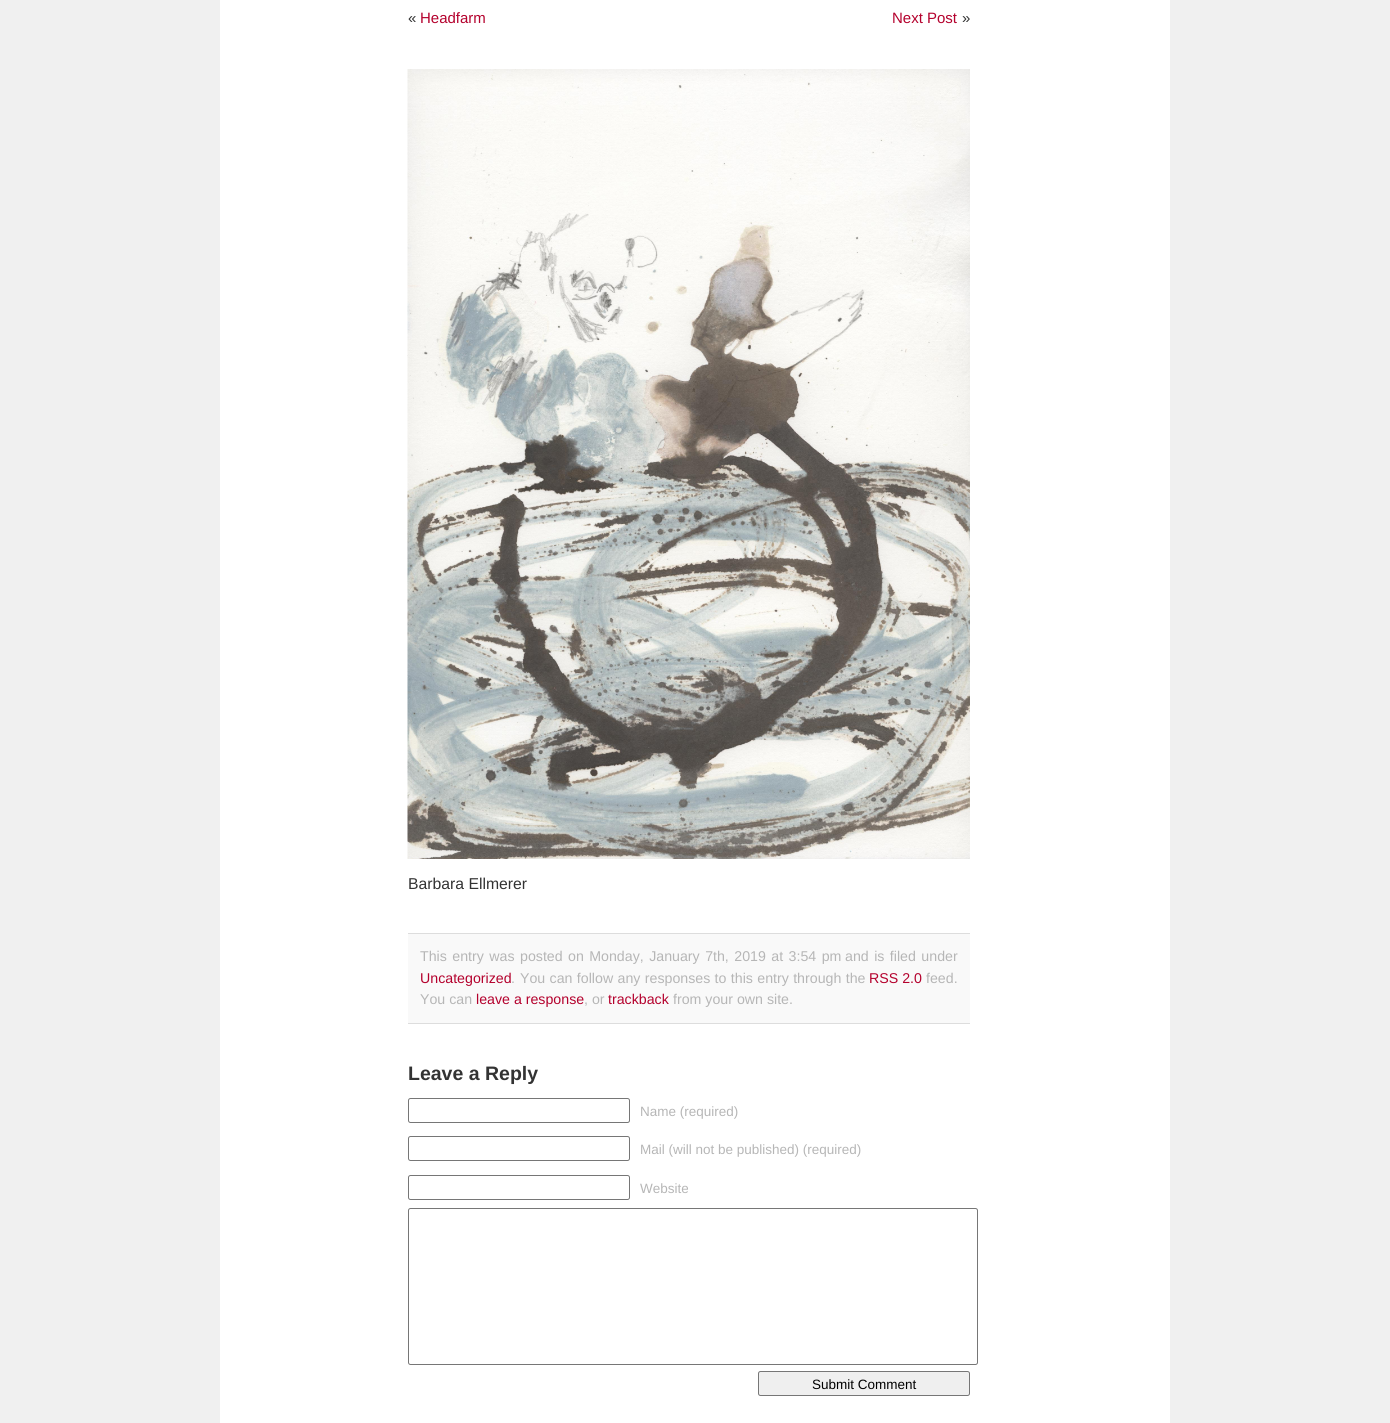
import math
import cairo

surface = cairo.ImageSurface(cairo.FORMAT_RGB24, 1390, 1423)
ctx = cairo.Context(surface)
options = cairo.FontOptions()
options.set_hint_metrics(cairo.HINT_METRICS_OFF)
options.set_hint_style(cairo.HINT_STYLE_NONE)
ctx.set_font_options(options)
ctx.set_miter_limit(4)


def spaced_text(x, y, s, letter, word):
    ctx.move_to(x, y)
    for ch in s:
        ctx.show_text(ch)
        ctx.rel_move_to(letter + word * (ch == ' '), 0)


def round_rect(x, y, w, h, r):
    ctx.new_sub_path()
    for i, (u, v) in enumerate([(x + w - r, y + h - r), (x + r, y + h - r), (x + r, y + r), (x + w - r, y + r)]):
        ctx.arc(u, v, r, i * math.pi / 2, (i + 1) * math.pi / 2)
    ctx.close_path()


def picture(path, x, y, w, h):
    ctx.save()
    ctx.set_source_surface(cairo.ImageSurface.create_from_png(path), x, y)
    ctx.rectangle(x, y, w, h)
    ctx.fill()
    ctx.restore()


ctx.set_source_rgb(0.941, 0.941, 0.941)
ctx.paint()
ctx.set_source_rgb(1, 1, 1)
ctx.rectangle(220, 0, 950, 1423)
ctx.fill()
ctx.select_font_face("Liberation Sans")
ctx.set_font_size(15)
ctx.set_source_rgb(0.2, 0.2, 0.2)
ctx.move_to(408, 23)
ctx.show_text("«")
ctx.set_source_rgb(0.706, 0.004, 0.176)
ctx.move_to(420, 23)
ctx.show_text("Headfarm")
ctx.move_to(892, 23)
ctx.show_text("Next Post")
ctx.set_source_rgb(0.2, 0.2, 0.2)
ctx.move_to(962, 23)
ctx.show_text("»")
picture("img1.png", 407, 69, 563, 790)
ctx.set_font_size(15.75)
ctx.move_to(408, 889)
ctx.show_text("Barbara Ellmerer")
ctx.set_source_rgb(0.973, 0.973, 0.973)
ctx.rectangle(408, 934, 562, 89)
ctx.fill()
ctx.set_source_rgb(0.867, 0.867, 0.867)
ctx.rectangle(408, 933, 562, 1)
ctx.fill()
ctx.rectangle(408, 1023, 562, 1)
ctx.fill()
ctx.set_font_size(14.2)
ctx.set_source_rgb(0.714, 0.714, 0.714)
spaced_text(420, 961, "This entry was posted", 0, 1.5)
spaced_text(568, 961, "on Monday, January 7th, 2019 at 3:54 pm", 0, 1.5)
spaced_text(845, 961, "and is filed under", 0, 1.5)
ctx.set_source_rgb(0.706, 0.004, 0.176)
ctx.move_to(420, 983)
ctx.show_text("Uncategorized")
ctx.set_source_rgb(0.714, 0.714, 0.714)
ctx.move_to(511, 983)
ctx.show_text(".")
spaced_text(520, 983, "You can follow any responses to this entry through the", 0, 0.4)
ctx.set_source_rgb(0.706, 0.004, 0.176)
ctx.move_to(869, 983)
ctx.show_text("RSS 2.0")
ctx.set_source_rgb(0.714, 0.714, 0.714)
ctx.move_to(926, 983)
ctx.show_text("feed.")
ctx.move_to(420, 1004)
ctx.show_text("You can")
ctx.set_source_rgb(0.706, 0.004, 0.176)
ctx.move_to(476, 1004)
ctx.show_text("leave a response")
ctx.set_source_rgb(0.714, 0.714, 0.714)
ctx.move_to(584, 1004)
ctx.show_text(", or")
ctx.set_source_rgb(0.706, 0.004, 0.176)
ctx.move_to(608, 1004)
ctx.show_text("trackback")
ctx.set_source_rgb(0.714, 0.714, 0.714)
ctx.move_to(673, 1004)
ctx.show_text("from your own site.")
ctx.select_font_face("Liberation Sans", cairo.FONT_SLANT_NORMAL, cairo.FONT_WEIGHT_BOLD)
ctx.set_font_size(19.5)
ctx.set_source_rgb(0.2, 0.2, 0.2)
ctx.move_to(408, 1080)
ctx.show_text("Leave a Reply")
round_rect(408.5, 1098.5, 221, 24, 2)
ctx.set_source_rgb(0.463, 0.463, 0.463)
ctx.set_line_width(1)
ctx.stroke()
ctx.select_font_face("Liberation Sans")
ctx.set_font_size(13.5)
ctx.set_source_rgb(0.714, 0.714, 0.714)
ctx.move_to(640, 1116)
ctx.show_text("Name (required)")
round_rect(408.5, 1136.5, 221, 24, 2)
ctx.set_source_rgb(0.463, 0.463, 0.463)
ctx.stroke()
ctx.set_source_rgb(0.714, 0.714, 0.714)
ctx.move_to(640, 1154)
ctx.show_text("Mail (will not be published) (required)")
round_rect(408.5, 1175.5, 221, 24, 2)
ctx.set_source_rgb(0.463, 0.463, 0.463)
ctx.stroke()
ctx.set_source_rgb(0.714, 0.714, 0.714)
ctx.move_to(640, 1193)
ctx.show_text("Website")
round_rect(408.5, 1208.5, 569, 156, 2)
ctx.set_source_rgb(0.463, 0.463, 0.463)
ctx.stroke()
ctx.set_source_rgb(0.937, 0.937, 0.937)
round_rect(758.5, 1371.5, 211, 24, 2)
ctx.fill_preserve()
ctx.set_source_rgb(0.463, 0.463, 0.463)
ctx.stroke()
ctx.set_source_rgb(0, 0, 0)
ctx.move_to(812, 1389)
ctx.show_text("Submit Comment")
surface.write_to_png("page.png")
